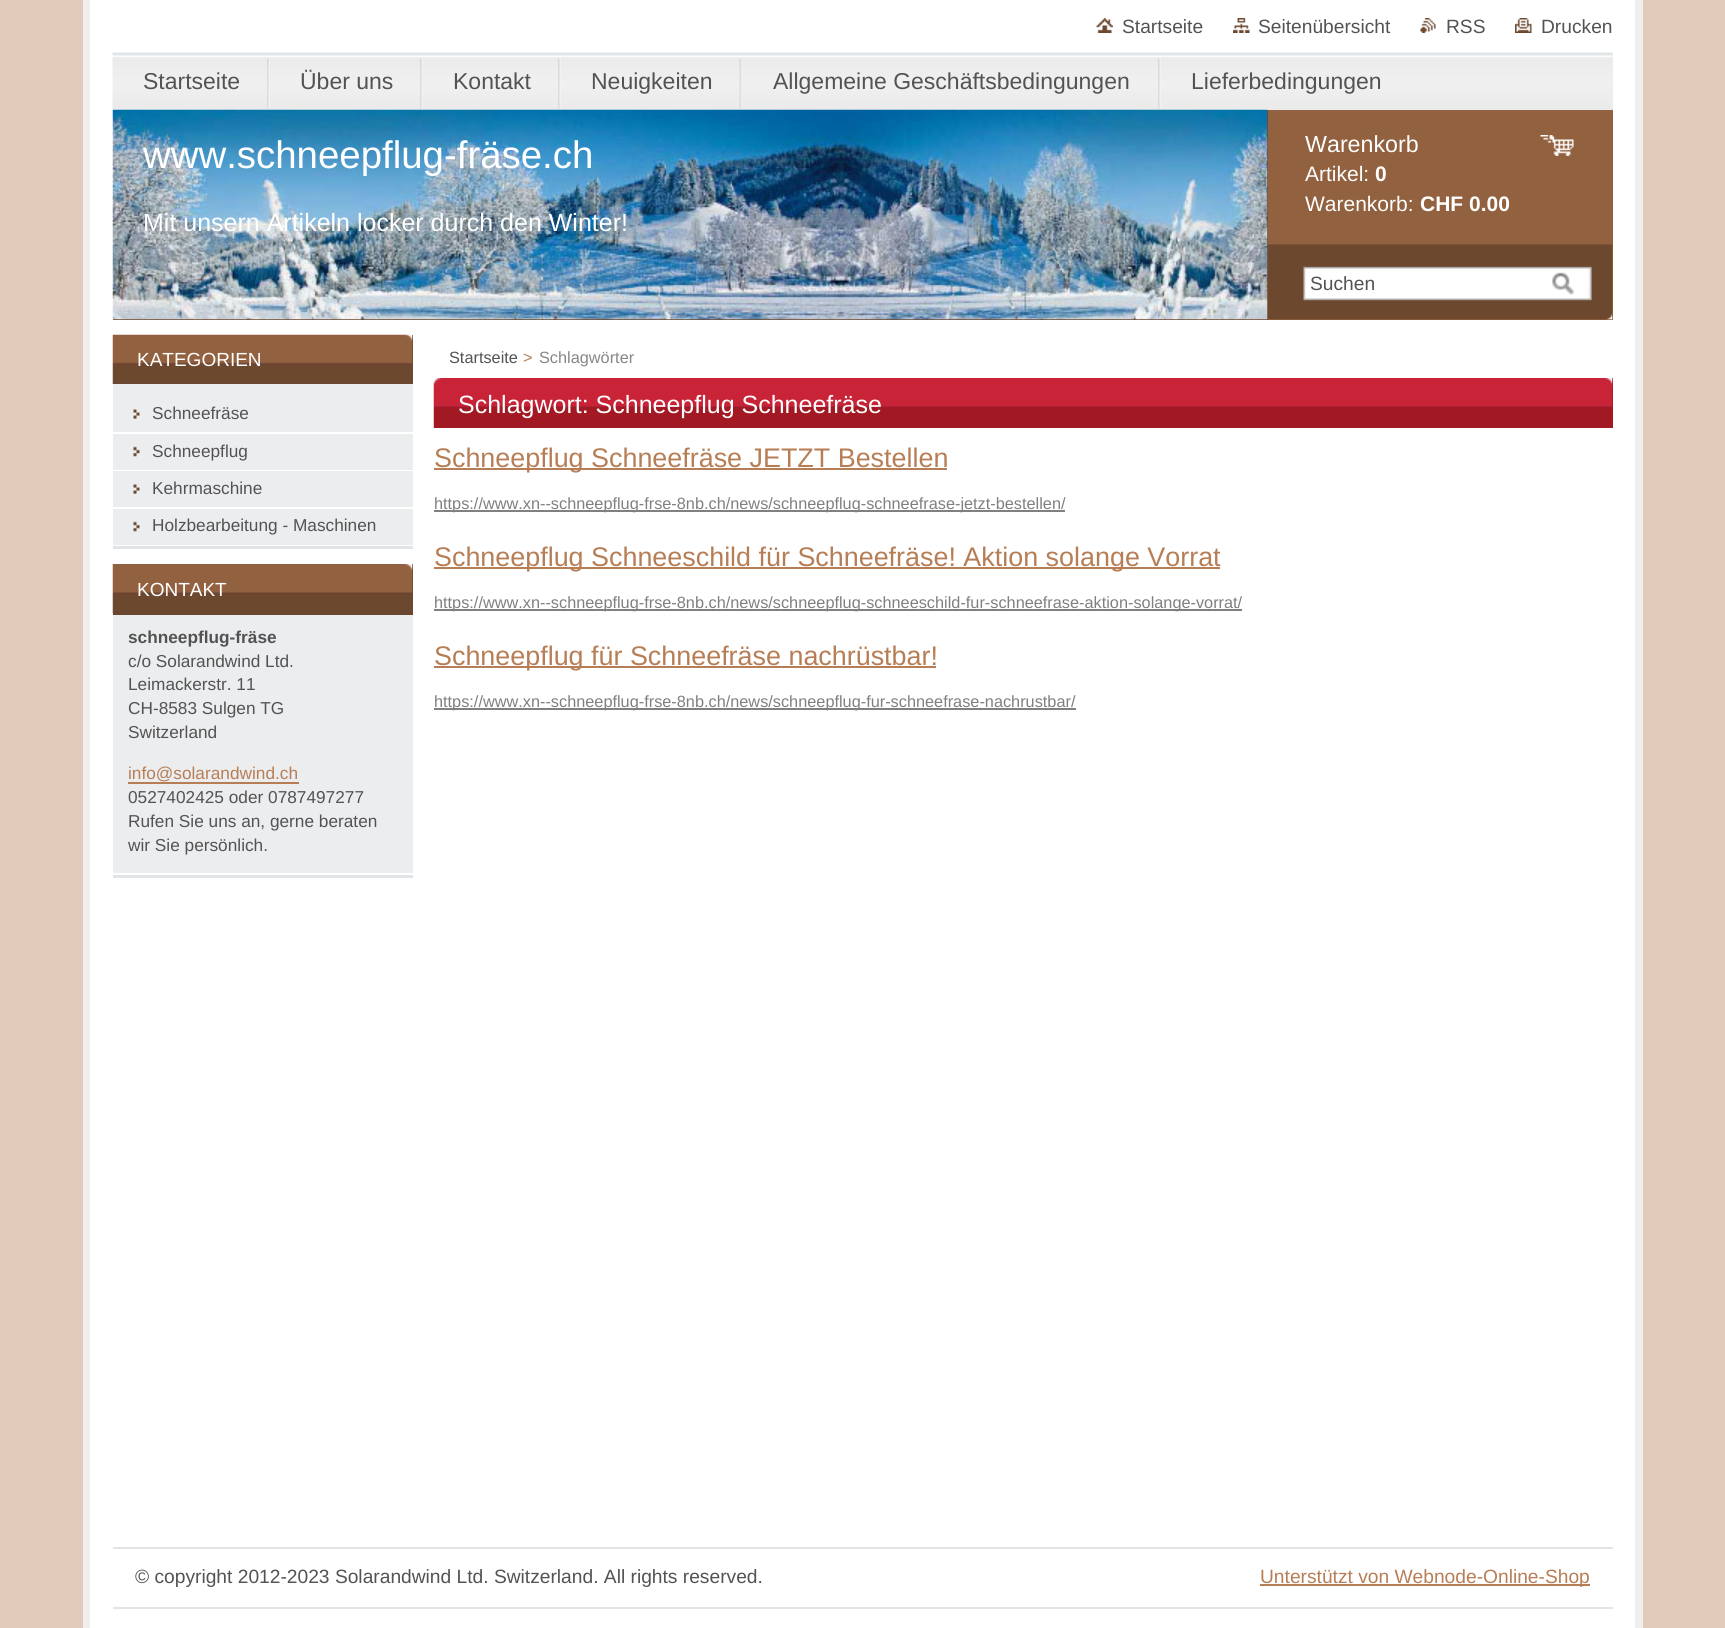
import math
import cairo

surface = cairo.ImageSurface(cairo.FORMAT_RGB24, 1725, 1628)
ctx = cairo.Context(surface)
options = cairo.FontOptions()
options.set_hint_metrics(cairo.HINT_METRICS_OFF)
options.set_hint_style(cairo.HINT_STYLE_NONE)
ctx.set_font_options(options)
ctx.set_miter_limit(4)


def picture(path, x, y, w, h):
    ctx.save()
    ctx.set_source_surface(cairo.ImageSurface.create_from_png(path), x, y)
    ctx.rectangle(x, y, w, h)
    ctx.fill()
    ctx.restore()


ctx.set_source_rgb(0.886, 0.796, 0.733)
ctx.paint()
ctx.set_source_rgb(1, 1, 1)
ctx.rectangle(90, 0, 1545, 1628)
ctx.fill()
ctx.set_source_rgb(0.937, 0.937, 0.937)
ctx.rectangle(1635, 0, 8, 1628)
ctx.fill()
ctx.rectangle(83, 0, 7, 1628)
ctx.fill()
picture("img1.png", 1096, 18, 17, 15)
ctx.select_font_face("Liberation Sans")
ctx.set_font_size(19.2)
ctx.set_source_rgb(0.325, 0.325, 0.325)
ctx.move_to(1122, 33)
ctx.show_text("Startseite")
picture("img2.png", 1233, 18, 17, 15)
ctx.move_to(1258, 33)
ctx.show_text("Seitenübersicht")
picture("img3.png", 1420, 18, 16, 15)
ctx.move_to(1446, 33)
ctx.show_text("RSS")
picture("img4.png", 1515, 18, 17, 15)
ctx.move_to(1541, 33)
ctx.show_text("Drucken")
ctx.set_source_rgb(0.925, 0.925, 0.925)
ctx.rectangle(113, 53, 1500, 57)
ctx.fill()
picture("img5.png", 112, 52, 1501, 58)
picture("img6.png", 267, 52, 3, 57)
ctx.set_font_size(23)
ctx.set_source_rgb(0.325, 0.325, 0.325)
ctx.move_to(143, 89)
ctx.show_text("Startseite")
picture("img6.png", 420, 52, 3, 57)
ctx.move_to(300, 89)
ctx.show_text("Über uns")
picture("img6.png", 558, 52, 3, 57)
ctx.move_to(453, 89)
ctx.show_text("Kontakt")
picture("img7.png", 739, 52, 4, 57)
ctx.move_to(591, 89)
ctx.show_text("Neuigkeiten")
picture("img6.png", 1158, 52, 3, 57)
ctx.move_to(773, 89)
ctx.show_text("Allgemeine Geschäftsbedingungen")
ctx.move_to(1191, 89)
ctx.show_text("Lieferbedingungen")
ctx.set_source_rgb(0.424, 0.282, 0.184)
ctx.rectangle(113, 110, 1155, 210)
ctx.fill()
picture("img8.png", 112, 109, 1156, 211)
ctx.save()
ctx.rectangle(143, 117, 900, 77)
ctx.clip()
ctx.set_font_size(38.4)
ctx.set_source_rgb(1, 1, 1)
ctx.move_to(143, 168)
ctx.show_text("www.schneepflug-fräse.ch")
ctx.restore()
ctx.set_font_size(25)
ctx.set_source_rgb(1, 1, 1)
ctx.move_to(143, 231)
ctx.show_text("Mit unsern Artikeln locker durch den Winter!")
ctx.set_source_rgb(0.573, 0.38, 0.247)
ctx.rectangle(1268, 110, 345, 210)
ctx.fill()
picture("img9.png", 1540, 135, 34, 21)
ctx.set_font_size(23.25)
ctx.set_source_rgb(1, 1, 1)
ctx.move_to(1305, 152)
ctx.show_text("Warenkorb")
ctx.set_font_size(21)
ctx.move_to(1305, 181)
ctx.show_text("Artikel:")
ctx.select_font_face("Liberation Sans", cairo.FONT_SLANT_NORMAL, cairo.FONT_WEIGHT_BOLD)
ctx.move_to(1375, 181)
ctx.show_text("0")
ctx.select_font_face("Liberation Sans")
ctx.move_to(1305, 211)
ctx.show_text("Warenkorb:")
ctx.select_font_face("Liberation Sans", cairo.FONT_SLANT_NORMAL, cairo.FONT_WEIGHT_BOLD)
ctx.move_to(1420, 211)
ctx.show_text("CHF 0.00")
picture("img10.png", 1268, 244, 345, 76)
ctx.select_font_face("Liberation Sans")
ctx.set_font_size(19.2)
ctx.set_source_rgb(0.325, 0.325, 0.325)
ctx.move_to(1310, 290)
ctx.show_text("Suchen")
picture("img11.png", 1552, 272, 27, 23)
ctx.set_source_rgb(0.886, 0.898, 0.91)
ctx.rectangle(113, 546, 300, 3)
ctx.fill()
ctx.set_source_rgb(0.922, 0.929, 0.937)
ctx.rectangle(113, 384, 300, 161)
ctx.fill()
ctx.set_source_rgb(0.424, 0.282, 0.184)
ctx.rectangle(412, 335, 1, 49)
ctx.fill()
picture("img12.png", 112, 334, 301, 50)
ctx.set_font_size(19)
ctx.set_source_rgb(1, 1, 1)
ctx.move_to(137, 366)
ctx.show_text("KATEGORIEN")
picture("img13.png", 133, 409, 7, 10)
ctx.rectangle(113, 432, 300, 2)
ctx.fill()
ctx.set_font_size(17.25)
ctx.set_source_rgb(0.325, 0.325, 0.325)
ctx.move_to(152, 419)
ctx.show_text("Schneefräse")
picture("img14.png", 133, 446, 7, 11)
ctx.set_source_rgb(1, 1, 1)
ctx.rectangle(113, 470, 300, 1)
ctx.fill()
ctx.set_source_rgb(0.325, 0.325, 0.325)
ctx.move_to(152, 457)
ctx.show_text("Schneepflug")
picture("img13.png", 133, 484, 7, 10)
ctx.set_source_rgb(1, 1, 1)
ctx.rectangle(113, 507, 300, 2)
ctx.fill()
ctx.set_source_rgb(0.325, 0.325, 0.325)
ctx.move_to(152, 494)
ctx.show_text("Kehrmaschine")
picture("img14.png", 133, 521, 7, 11)
ctx.move_to(152, 531)
ctx.show_text("Holzbearbeitung - Maschinen")
ctx.set_source_rgb(0.886, 0.898, 0.91)
ctx.rectangle(113, 875, 300, 3)
ctx.fill()
ctx.set_source_rgb(0.922, 0.929, 0.937)
ctx.rectangle(113, 615, 300, 258)
ctx.fill()
ctx.set_source_rgb(0.424, 0.282, 0.184)
ctx.rectangle(113, 564, 300, 51)
ctx.fill()
picture("img15.png", 112, 564, 301, 50)
ctx.set_font_size(19)
ctx.set_source_rgb(1, 1, 1)
ctx.move_to(137, 596)
ctx.show_text("KONTAKT")
ctx.select_font_face("Liberation Sans", cairo.FONT_SLANT_NORMAL, cairo.FONT_WEIGHT_BOLD)
ctx.set_font_size(17.25)
ctx.set_source_rgb(0.325, 0.325, 0.325)
ctx.move_to(128, 643)
ctx.show_text("schneepflug-fräse")
ctx.select_font_face("Liberation Sans")
ctx.move_to(128, 667)
ctx.show_text("c/o Solarandwind Ltd.")
ctx.move_to(128, 690)
ctx.show_text("Leimackerstr. 11")
ctx.move_to(128, 714)
ctx.show_text("CH-8583 Sulgen TG")
ctx.move_to(128, 738)
ctx.show_text("Switzerland")
ctx.set_source_rgb(0.718, 0.494, 0.337)
ctx.move_to(128, 779)
ctx.show_text("info@solarandwind.ch")
ctx.rectangle(128, 782, 171, 2)
ctx.fill()
ctx.set_source_rgb(0.325, 0.325, 0.325)
ctx.move_to(128, 803)
ctx.show_text("0527402425 oder 0787497277")
ctx.move_to(128, 827)
ctx.show_text("Rufen Sie uns an, gerne beraten")
ctx.save()
ctx.rectangle(128, 627, 270, 231)
ctx.clip()
ctx.move_to(128, 851)
ctx.show_text("wir Sie persönlich.")
ctx.restore()
ctx.set_font_size(16.3)
ctx.move_to(449, 363)
ctx.show_text("Startseite")
ctx.set_source_rgb(0.718, 0.494, 0.337)
ctx.move_to(523, 363)
ctx.show_text(">")
ctx.set_source_rgb(0.529, 0.529, 0.529)
ctx.move_to(539, 363)
ctx.show_text("Schlagwörter")
ctx.set_source_rgb(0.635, 0.098, 0.137)
ctx.rectangle(434, 378, 1179, 50)
ctx.fill()
picture("img16.png", 433, 378, 1180, 50)
picture("img17.png", 1605, 378, 8, 10)
ctx.set_font_size(25)
ctx.set_source_rgb(1, 1, 1)
ctx.move_to(458, 413)
ctx.show_text("Schlagwort: Schneepflug Schneefräse")
ctx.set_source_rgb(0.718, 0.494, 0.337)
ctx.rectangle(434, 468, 513, 2)
ctx.fill()
ctx.set_font_size(26.9)
ctx.move_to(434, 467)
ctx.show_text("Schneepflug Schneefräse JETZT Bestellen")
ctx.set_source_rgb(0.502, 0.502, 0.502)
ctx.rectangle(434, 510, 631, 2)
ctx.fill()
ctx.set_font_size(16.3)
ctx.move_to(434, 509)
ctx.show_text("https://www.xn--schneepflug-frse-8nb.ch/news/schneepflug-schneefrase-jetzt-bestellen/")
ctx.set_source_rgb(0.718, 0.494, 0.337)
ctx.rectangle(434, 567, 786, 2)
ctx.fill()
ctx.set_font_size(26.9)
ctx.move_to(434, 566)
ctx.show_text("Schneepflug Schneeschild für Schneefräse! Aktion solange Vorrat")
ctx.set_source_rgb(0.502, 0.502, 0.502)
ctx.rectangle(434, 609, 808, 2)
ctx.fill()
ctx.set_font_size(16.3)
ctx.move_to(434, 608)
ctx.show_text("https://www.xn--schneepflug-frse-8nb.ch/news/schneepflug-schneeschild-fur-schneefrase-aktion-solange-vorrat/")
ctx.set_source_rgb(0.718, 0.494, 0.337)
ctx.rectangle(434, 666, 502, 2)
ctx.fill()
ctx.set_font_size(26.9)
ctx.move_to(434, 665)
ctx.show_text("Schneepflug für Schneefräse nachrüstbar!")
ctx.set_source_rgb(0.502, 0.502, 0.502)
ctx.rectangle(434, 708, 642, 2)
ctx.fill()
ctx.set_font_size(16.3)
ctx.move_to(434, 707)
ctx.show_text("https://www.xn--schneepflug-frse-8nb.ch/news/schneepflug-fur-schneefrase-nachrustbar/")
ctx.set_source_rgb(0.886, 0.898, 0.91)
ctx.rectangle(113, 1547, 1500, 2)
ctx.fill()
ctx.rectangle(113, 1607, 1500, 2)
ctx.fill()
ctx.set_font_size(19.2)
ctx.set_source_rgb(0.325, 0.325, 0.325)
ctx.move_to(135, 1583)
ctx.show_text("© copyright 2012-2023 Solarandwind Ltd. Switzerland. All rights reserved.")
ctx.set_source_rgb(0.718, 0.494, 0.337)
ctx.rectangle(1260, 1584, 330, 2)
ctx.fill()
ctx.move_to(1260, 1583)
ctx.show_text("Unterstützt von Webnode-Online-Shop")
surface.write_to_png("page.png")
